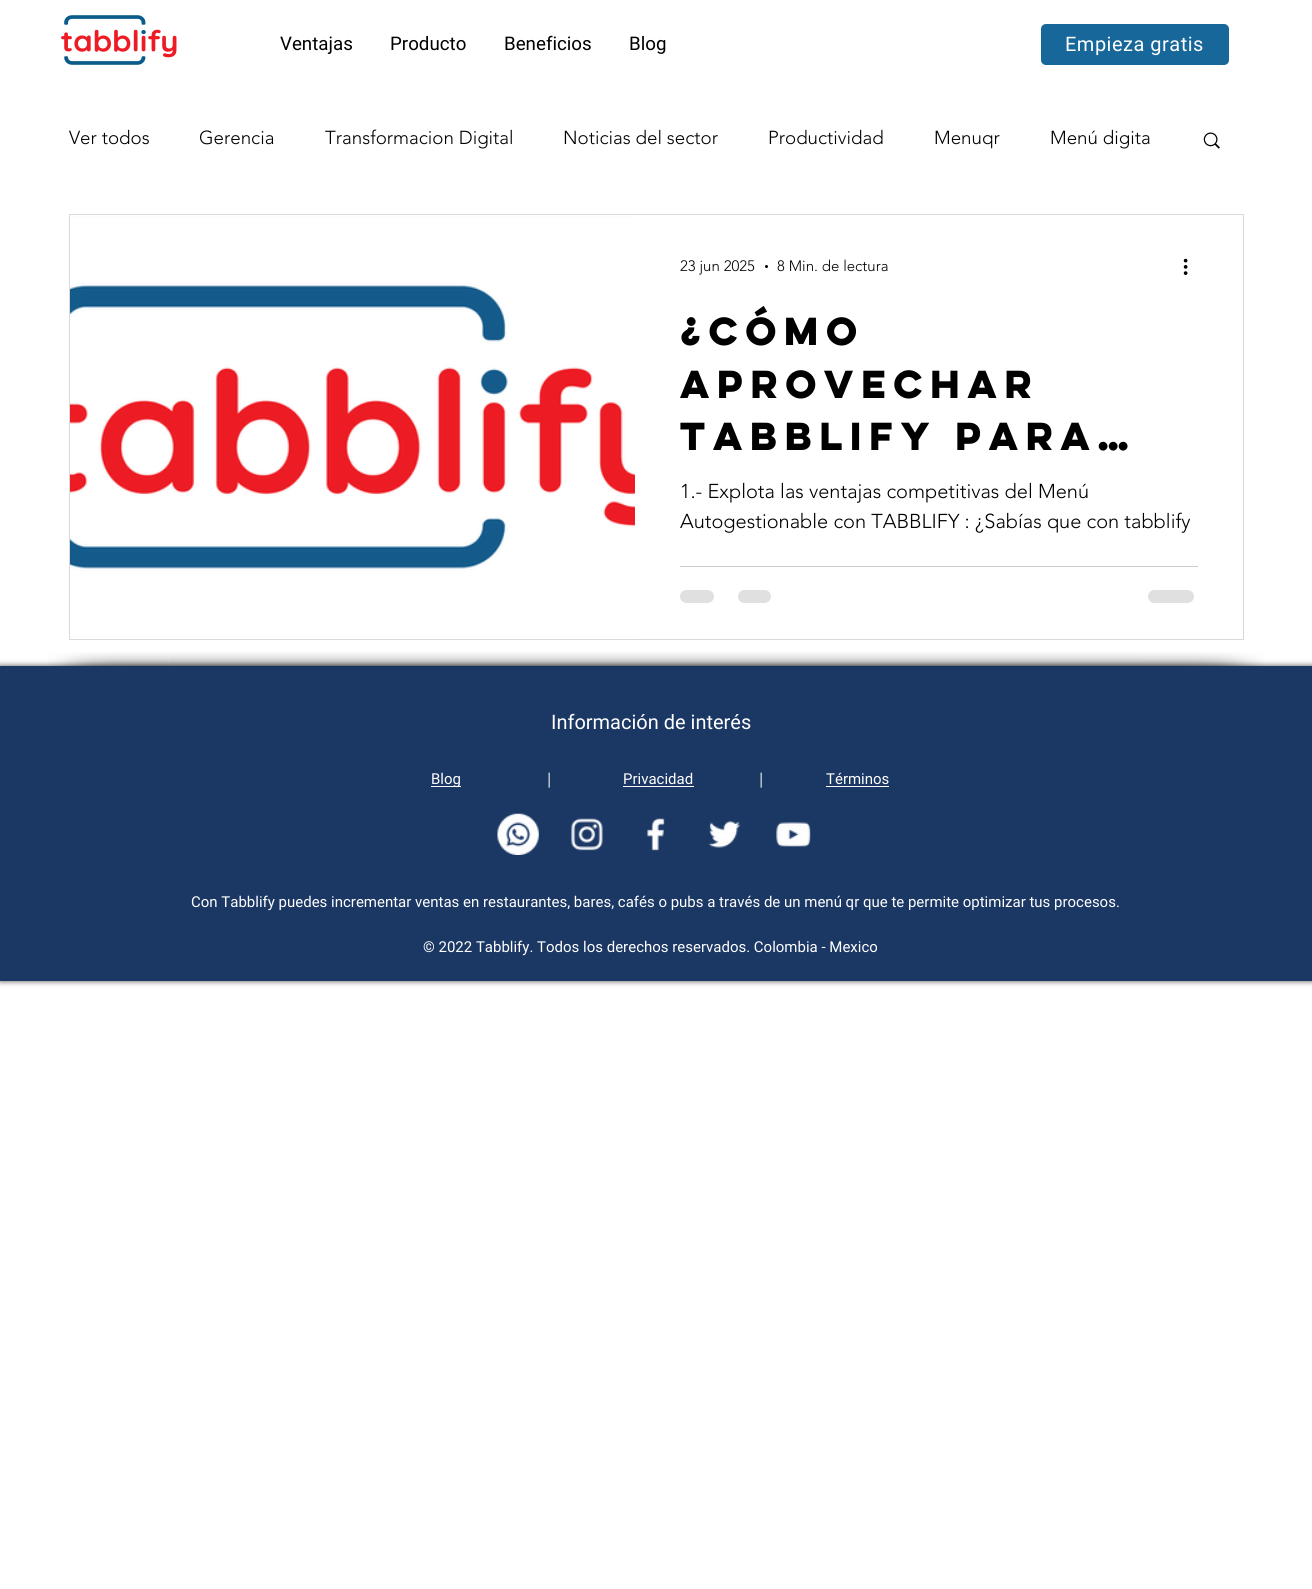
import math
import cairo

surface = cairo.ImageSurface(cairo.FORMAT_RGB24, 1312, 1589)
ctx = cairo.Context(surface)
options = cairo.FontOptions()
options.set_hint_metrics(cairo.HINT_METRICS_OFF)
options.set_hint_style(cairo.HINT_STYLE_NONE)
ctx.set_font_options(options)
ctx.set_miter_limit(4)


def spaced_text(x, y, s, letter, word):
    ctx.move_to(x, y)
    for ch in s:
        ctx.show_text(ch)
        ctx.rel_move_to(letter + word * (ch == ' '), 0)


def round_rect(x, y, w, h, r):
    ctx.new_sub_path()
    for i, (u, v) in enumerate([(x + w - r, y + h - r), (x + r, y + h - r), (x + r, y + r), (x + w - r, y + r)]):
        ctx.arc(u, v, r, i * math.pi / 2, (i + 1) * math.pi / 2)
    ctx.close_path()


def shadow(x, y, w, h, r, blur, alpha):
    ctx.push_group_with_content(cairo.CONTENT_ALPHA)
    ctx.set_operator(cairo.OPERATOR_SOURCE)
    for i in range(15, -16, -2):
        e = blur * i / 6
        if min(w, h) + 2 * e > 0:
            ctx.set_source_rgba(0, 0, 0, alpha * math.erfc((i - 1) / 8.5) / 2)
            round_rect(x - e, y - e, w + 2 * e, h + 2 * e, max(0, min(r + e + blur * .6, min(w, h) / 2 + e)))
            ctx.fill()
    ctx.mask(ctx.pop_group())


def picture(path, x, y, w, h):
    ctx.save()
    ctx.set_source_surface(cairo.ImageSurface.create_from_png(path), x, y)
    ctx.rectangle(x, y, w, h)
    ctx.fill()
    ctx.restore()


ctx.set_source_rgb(1, 1, 1)
ctx.paint()
picture("img1.png", 61, 15, 116, 50)
ctx.select_font_face("Roboto")
ctx.set_font_size(18.75)
ctx.set_source_rgb(0, 0, 0)
ctx.move_to(280, 50)
ctx.show_text("Ventajas")
ctx.move_to(390, 50)
ctx.show_text("Producto")
ctx.move_to(504, 50)
ctx.show_text("Beneficios")
ctx.move_to(629, 50)
ctx.show_text("Blog")
ctx.set_source_rgb(0.09, 0.404, 0.604)
round_rect(1041, 24, 188, 41, 5)
ctx.fill()
ctx.set_font_size(20)
ctx.set_source_rgb(1, 1, 1)
spaced_text(1065, 51, "Empieza gratis", 0.5, 0)
ctx.select_font_face("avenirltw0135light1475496 Light")
ctx.set_font_size(18.75)
ctx.set_source_rgb(0, 0, 0)
ctx.move_to(69, 144)
ctx.show_text("Ver todos")
ctx.move_to(199, 144)
ctx.show_text("Gerencia")
ctx.move_to(325, 144)
ctx.show_text("Transformacion Digital")
ctx.move_to(563, 144)
ctx.show_text("Noticias del sector")
ctx.move_to(768, 144)
ctx.show_text("Productividad")
ctx.move_to(934, 144)
ctx.show_text("Menuqr")
ctx.move_to(1050, 144)
ctx.show_text("Menú digita")
picture("img2.png", 1203, 132, 17, 17)
ctx.rectangle(69.5, 214.5, 1174, 425)
ctx.set_source_rgb(0.851, 0.851, 0.851)
ctx.set_line_width(1)
ctx.stroke()
picture("img3.png", 70, 215, 565, 424)
ctx.set_font_size(15)
ctx.set_source_rgb(0, 0, 0)
ctx.move_to(680, 271)
ctx.show_text("23 jun 2025")
ctx.new_path()
ctx.arc(766.5, 266.5, 1.5, 0, 2 * math.pi)
ctx.fill()
ctx.move_to(777, 271)
ctx.show_text("8 Min. de lectura")
picture("img4.png", 1183, 258, 5, 17)
ctx.select_font_face("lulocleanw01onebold", cairo.FONT_SLANT_NORMAL, cairo.FONT_WEIGHT_BOLD)
ctx.set_font_size(35)
ctx.move_to(680, 345)
ctx.show_text("¿Cómo")
ctx.move_to(680, 398)
ctx.show_text("aprovechar")
ctx.move_to(680, 450)
ctx.show_text("TABBLIFY para…")
ctx.select_font_face("avenirltw0135light1475496 Light")
ctx.set_font_size(20)
ctx.move_to(680, 498)
ctx.show_text("1.- Explota las ventajas competitivas del Menú")
ctx.move_to(680, 528)
ctx.show_text("Autogestionable con TABBLIFY : ¿Sabías que con tabblify")
ctx.set_source_rgb(0.8, 0.8, 0.8)
ctx.rectangle(680, 566, 518, 1)
ctx.fill()
ctx.set_source_rgb(0.878, 0.878, 0.878)
round_rect(680, 590, 34, 13, 6.5)
ctx.fill()
round_rect(738, 590, 33, 13, 6.5)
ctx.fill()
round_rect(1148, 590, 46, 13, 6.5)
ctx.fill()
ctx.set_source_rgb(0, 0, 0)
shadow(0, 666, 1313, 315, 0, 3, 0.7)
ctx.set_source_rgb(0.106, 0.216, 0.392)
ctx.rectangle(0, 666, 1312, 315)
ctx.fill()
picture("img5.png", 48, 652, 121, 15)
picture("img6.png", 168, 652, 976, 15)
picture("img7.png", 1143, 652, 121, 15)
ctx.select_font_face("Roboto")
ctx.set_source_rgb(1, 1, 1)
ctx.move_to(551, 729)
ctx.show_text("Información de interés")
ctx.rectangle(431, 786, 30, 1)
ctx.fill()
ctx.set_font_size(15)
ctx.move_to(431, 784)
ctx.show_text("Blog")
ctx.select_font_face("Open Sans")
ctx.move_to(545, 784)
ctx.show_text("|")
ctx.select_font_face("Roboto")
ctx.move_to(623, 784)
ctx.show_text("Privacidad")
ctx.rectangle(623, 786, 71, 1)
ctx.fill()
ctx.select_font_face("Open Sans")
ctx.move_to(757, 784)
ctx.show_text("|")
ctx.select_font_face("Roboto")
ctx.move_to(826, 784)
ctx.show_text("Términos")
ctx.rectangle(826, 786, 63, 1)
ctx.fill()
picture("img8.png", 497, 813, 42, 42)
picture("img9.png", 571, 818, 32, 33)
picture("img10.png", 646, 818, 19, 33)
picture("img11.png", 708, 821, 33, 27)
picture("img12.png", 776, 822, 35, 25)
ctx.move_to(191, 907)
ctx.show_text("Con Tabblify puedes incrementar ventas en restaurantes, bares, cafés o pubs a través de un menú qr que te permite optimizar tus procesos.")
ctx.move_to(423, 952)
ctx.show_text("© 2022 Tabblify. Todos los derechos reservados. Colombia - Mexico")
surface.write_to_png("page.png")
